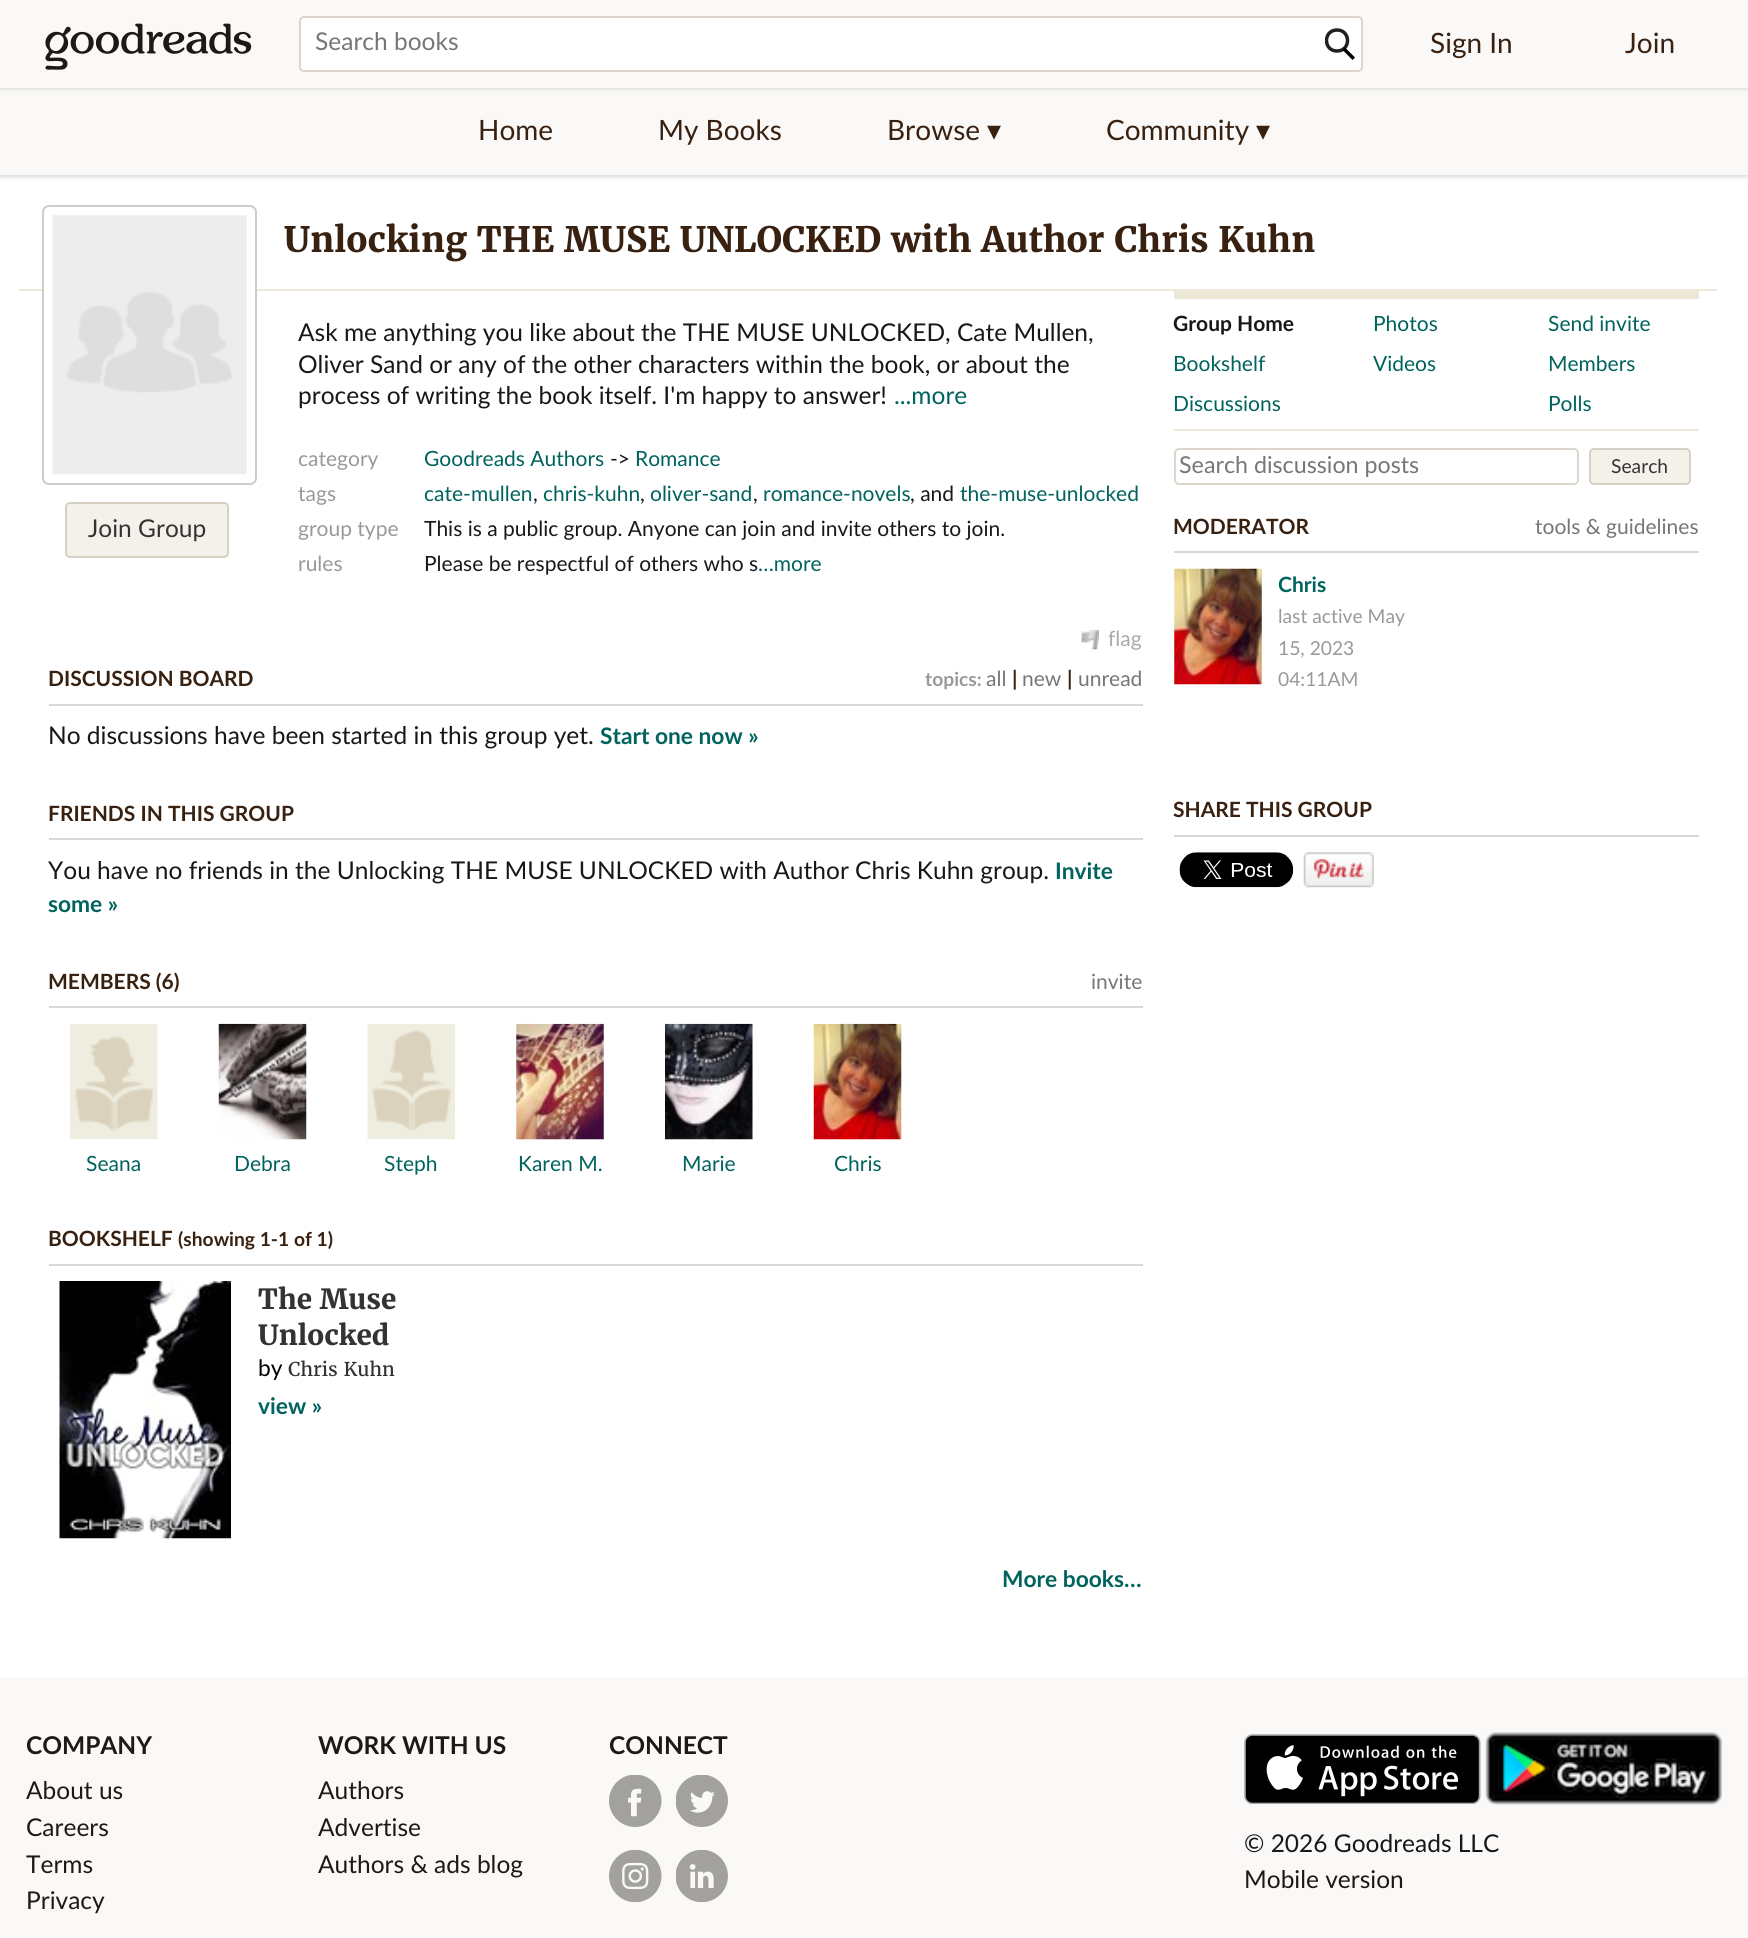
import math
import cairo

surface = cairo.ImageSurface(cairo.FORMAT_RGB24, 1748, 1938)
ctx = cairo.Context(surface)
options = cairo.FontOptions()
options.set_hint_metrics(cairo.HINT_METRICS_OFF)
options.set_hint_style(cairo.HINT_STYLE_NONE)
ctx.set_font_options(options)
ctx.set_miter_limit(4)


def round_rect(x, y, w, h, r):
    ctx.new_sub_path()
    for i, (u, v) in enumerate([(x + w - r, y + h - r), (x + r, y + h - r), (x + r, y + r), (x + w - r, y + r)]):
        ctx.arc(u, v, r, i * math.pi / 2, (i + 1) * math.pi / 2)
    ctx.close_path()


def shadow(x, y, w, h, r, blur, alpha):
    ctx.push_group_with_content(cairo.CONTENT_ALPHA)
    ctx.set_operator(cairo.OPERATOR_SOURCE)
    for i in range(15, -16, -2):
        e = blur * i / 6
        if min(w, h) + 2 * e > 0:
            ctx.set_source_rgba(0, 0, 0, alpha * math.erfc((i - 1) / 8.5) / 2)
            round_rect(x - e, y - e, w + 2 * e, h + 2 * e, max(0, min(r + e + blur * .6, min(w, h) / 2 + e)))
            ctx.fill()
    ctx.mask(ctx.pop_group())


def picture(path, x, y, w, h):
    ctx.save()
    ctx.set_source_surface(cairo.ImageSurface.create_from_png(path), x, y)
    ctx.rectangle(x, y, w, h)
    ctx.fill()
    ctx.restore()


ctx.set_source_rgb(1, 1, 1)
ctx.paint()
ctx.set_source_rgb(0, 0, 0)
shadow(0, 89, 1748, 88, 0, 2, 0.15)
ctx.set_source_rgb(0.98, 0.973, 0.965)
ctx.rectangle(0, 88, 1748, 87)
ctx.fill()
ctx.set_source_rgb(0, 0, 0)
shadow(0, 2, 1748, 87, 0, 2, 0.15)
ctx.set_source_rgb(0.98, 0.973, 0.965)
ctx.rectangle(0, 0, 1748, 88)
ctx.fill()
picture("img1.png", 45, 23, 207, 47)
ctx.set_source_rgb(1, 1, 1)
round_rect(300, 17, 1062, 54, 4)
ctx.fill_preserve()
ctx.set_source_rgb(0.863, 0.839, 0.8)
ctx.stroke()
ctx.select_font_face("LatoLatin")
ctx.set_font_size(24.5)
ctx.set_source_rgb(0.463, 0.463, 0.463)
ctx.move_to(315, 50)
ctx.show_text("Search books")
ctx.save()
ctx.rectangle(1325, 28, 31, 33)
ctx.clip()
ctx.new_path()
ctx.move_to(1337, 51)
ctx.curve_to(1351, 51, 1351, 30, 1337, 30)
ctx.curve_to(1323, 30, 1323, 51, 1337, 51)
ctx.close_path()
ctx.set_source_rgb(0.125, 0.125, 0.125)
ctx.set_line_width(3.5)
ctx.stroke()
ctx.restore()
ctx.new_path()
ctx.move_to(1345, 50)
ctx.line_to(1352.5, 57.5)
ctx.set_source_rgb(0, 0, 0)
ctx.set_line_width(3.5)
ctx.set_line_cap(cairo.LINE_CAP_SQUARE)
ctx.stroke()
ctx.set_font_size(28)
ctx.set_source_rgb(0.22, 0.129, 0.063)
ctx.move_to(1430, 53)
ctx.show_text("Sign In")
ctx.move_to(1625, 53)
ctx.show_text("Join")
ctx.move_to(478, 140)
ctx.show_text("Home")
ctx.move_to(658, 140)
ctx.show_text("My Books")
ctx.move_to(887, 140)
ctx.show_text("Browse")
ctx.select_font_face("DejaVu Sans")
ctx.move_to(987, 140)
ctx.show_text("▾")
ctx.select_font_face("LatoLatin")
ctx.move_to(1106, 140)
ctx.show_text("Community")
ctx.select_font_face("DejaVu Sans")
ctx.move_to(1256, 140)
ctx.show_text("▾")
ctx.set_source_rgb(0.922, 0.91, 0.835)
ctx.rectangle(19, 289, 1698, 2)
ctx.fill()
ctx.select_font_face("Merriweather", cairo.FONT_SLANT_NORMAL, cairo.FONT_WEIGHT_BOLD)
ctx.set_font_size(35)
ctx.set_source_rgb(0.22, 0.129, 0.063)
ctx.move_to(284, 252)
ctx.show_text("Unlocking THE MUSE UNLOCKED with Author Chris Kuhn")
ctx.select_font_face("LatoLatin")
ctx.set_font_size(24.5)
ctx.set_source_rgb(0.094, 0.094, 0.094)
ctx.move_to(298, 341)
ctx.show_text("Ask me anything you like about the THE MUSE UNLOCKED, Cate Mullen,")
ctx.move_to(298, 373)
ctx.show_text("Oliver Sand or any of the other characters within the book, or about the")
ctx.move_to(298, 404)
ctx.show_text("process of writing the book itself. I'm happy to answer!")
ctx.set_source_rgb(0, 0.388, 0.365)
ctx.move_to(894, 404)
ctx.show_text("...more")
ctx.set_font_size(21)
ctx.set_source_rgb(0.6, 0.6, 0.6)
ctx.move_to(298, 466)
ctx.show_text("category")
ctx.set_source_rgb(0, 0.388, 0.365)
ctx.move_to(424, 466)
ctx.show_text("Goodreads Authors")
ctx.set_source_rgb(0.094, 0.094, 0.094)
ctx.move_to(610, 466)
ctx.show_text("->")
ctx.set_source_rgb(0, 0.388, 0.365)
ctx.move_to(635, 466)
ctx.show_text("Romance")
ctx.set_source_rgb(0.6, 0.6, 0.6)
ctx.move_to(298, 501)
ctx.show_text("tags")
ctx.set_source_rgb(0, 0.388, 0.365)
ctx.move_to(424, 501)
ctx.show_text("cate-mullen")
ctx.set_source_rgb(0.094, 0.094, 0.094)
ctx.move_to(533, 501)
ctx.show_text(",")
ctx.set_source_rgb(0, 0.388, 0.365)
ctx.move_to(543, 501)
ctx.show_text("chris-kuhn")
ctx.set_source_rgb(0.094, 0.094, 0.094)
ctx.move_to(640, 501)
ctx.show_text(",")
ctx.set_source_rgb(0, 0.388, 0.365)
ctx.move_to(650, 501)
ctx.show_text("oliver-sand")
ctx.set_source_rgb(0.094, 0.094, 0.094)
ctx.move_to(753, 501)
ctx.show_text(",")
ctx.set_source_rgb(0, 0.388, 0.365)
ctx.move_to(763, 501)
ctx.show_text("romance-novels")
ctx.set_source_rgb(0.094, 0.094, 0.094)
ctx.move_to(910, 501)
ctx.show_text(", and")
ctx.set_source_rgb(0, 0.388, 0.365)
ctx.move_to(960, 501)
ctx.show_text("the-muse-unlocked")
ctx.set_source_rgb(0.6, 0.6, 0.6)
ctx.move_to(298, 536)
ctx.show_text("group type")
ctx.set_source_rgb(0.094, 0.094, 0.094)
ctx.move_to(424, 536)
ctx.show_text("This is a public group. Anyone can join and invite others to join.")
ctx.set_source_rgb(0.6, 0.6, 0.6)
ctx.move_to(298, 571)
ctx.show_text("rules")
ctx.set_source_rgb(0.094, 0.094, 0.094)
ctx.move_to(424, 571)
ctx.show_text("Please be respectful of others who s")
ctx.set_source_rgb(0, 0.388, 0.365)
ctx.move_to(758, 571)
ctx.show_text("…more")
picture("img2.png", 1081, 630, 18, 20)
ctx.set_source_rgb(0.667, 0.667, 0.667)
ctx.move_to(1108, 646)
ctx.show_text("flag")
ctx.set_source_rgb(0.847, 0.847, 0.847)
ctx.rectangle(49, 704, 1094, 2)
ctx.fill()
ctx.select_font_face("LatoLatin", cairo.FONT_SLANT_NORMAL, cairo.FONT_WEIGHT_BOLD)
ctx.set_source_rgb(0.22, 0.129, 0.063)
ctx.move_to(48, 686)
ctx.show_text("DISCUSSION BOARD")
ctx.set_font_size(19.25)
ctx.set_source_rgb(0.6, 0.6, 0.6)
ctx.move_to(925, 686)
ctx.show_text("topics:")
ctx.select_font_face("LatoLatin")
ctx.set_font_size(21)
ctx.set_source_rgb(0.463, 0.463, 0.463)
ctx.move_to(986, 686)
ctx.show_text("all")
ctx.select_font_face("LatoLatin", cairo.FONT_SLANT_NORMAL, cairo.FONT_WEIGHT_BOLD)
ctx.set_source_rgb(0.22, 0.129, 0.063)
ctx.move_to(1012, 686)
ctx.show_text("|")
ctx.select_font_face("LatoLatin")
ctx.set_source_rgb(0.463, 0.463, 0.463)
ctx.move_to(1022, 686)
ctx.show_text("new")
ctx.select_font_face("LatoLatin", cairo.FONT_SLANT_NORMAL, cairo.FONT_WEIGHT_BOLD)
ctx.set_source_rgb(0.22, 0.129, 0.063)
ctx.move_to(1067, 686)
ctx.show_text("|")
ctx.select_font_face("LatoLatin")
ctx.set_source_rgb(0.463, 0.463, 0.463)
ctx.move_to(1078, 686)
ctx.show_text("unread")
ctx.set_font_size(24.5)
ctx.set_source_rgb(0.094, 0.094, 0.094)
ctx.move_to(48, 744)
ctx.show_text("No discussions have been started in this group yet.")
ctx.select_font_face("LatoLatin", cairo.FONT_SLANT_NORMAL, cairo.FONT_WEIGHT_BOLD)
ctx.set_font_size(22.75)
ctx.set_source_rgb(0, 0.388, 0.365)
ctx.move_to(600, 744)
ctx.show_text("Start one now »")
ctx.set_source_rgb(0.847, 0.847, 0.847)
ctx.rectangle(49, 838, 1094, 2)
ctx.fill()
ctx.set_font_size(21)
ctx.set_source_rgb(0.22, 0.129, 0.063)
ctx.move_to(48, 821)
ctx.show_text("FRIENDS IN THIS GROUP")
ctx.select_font_face("LatoLatin")
ctx.set_font_size(24.5)
ctx.set_source_rgb(0.094, 0.094, 0.094)
ctx.move_to(48, 879)
ctx.show_text("You have no friends in the Unlocking THE MUSE UNLOCKED with Author Chris Kuhn group.")
ctx.select_font_face("LatoLatin", cairo.FONT_SLANT_NORMAL, cairo.FONT_WEIGHT_BOLD)
ctx.set_font_size(22.75)
ctx.set_source_rgb(0, 0.388, 0.365)
ctx.move_to(1055, 879)
ctx.show_text("Invite")
ctx.move_to(48, 912)
ctx.show_text("some »")
ctx.set_source_rgb(0.847, 0.847, 0.847)
ctx.rectangle(49, 1006, 1094, 2)
ctx.fill()
ctx.set_font_size(21)
ctx.set_source_rgb(0.22, 0.129, 0.063)
ctx.move_to(48, 989)
ctx.show_text("MEMBERS (6)")
ctx.select_font_face("LatoLatin")
ctx.set_source_rgb(0.463, 0.463, 0.463)
ctx.move_to(1091, 989)
ctx.show_text("invite")
picture("img3.png", 70, 1024, 88, 116)
ctx.set_source_rgb(0, 0.388, 0.365)
ctx.move_to(86, 1171)
ctx.show_text("Seana")
picture("img4.png", 218, 1023, 89, 117)
ctx.move_to(234, 1171)
ctx.show_text("Debra")
picture("img5.png", 367, 1024, 88, 116)
ctx.move_to(384, 1171)
ctx.show_text("Steph")
picture("img6.png", 516, 1023, 88, 117)
ctx.move_to(518, 1171)
ctx.show_text("Karen M.")
picture("img7.png", 665, 1023, 88, 117)
ctx.move_to(682, 1171)
ctx.show_text("Marie")
picture("img8.png", 813, 1023, 89, 117)
ctx.move_to(834, 1171)
ctx.show_text("Chris")
ctx.set_source_rgb(0.847, 0.847, 0.847)
ctx.rectangle(49, 1264, 1094, 2)
ctx.fill()
ctx.select_font_face("LatoLatin", cairo.FONT_SLANT_NORMAL, cairo.FONT_WEIGHT_BOLD)
ctx.set_source_rgb(0.22, 0.129, 0.063)
ctx.move_to(48, 1246)
ctx.show_text("BOOKSHELF")
ctx.set_font_size(19.25)
ctx.move_to(178, 1246)
ctx.show_text("(showing 1-1 of 1)")
picture("img9.png", 59, 1281, 172, 258)
ctx.select_font_face("Merriweather", cairo.FONT_SLANT_NORMAL, cairo.FONT_WEIGHT_BOLD)
ctx.set_font_size(27.75)
ctx.set_source_rgb(0.2, 0.2, 0.2)
ctx.move_to(258, 1309)
ctx.show_text("The Muse")
ctx.move_to(258, 1345)
ctx.show_text("Unlocked")
ctx.select_font_face("LatoLatin")
ctx.set_font_size(22.75)
ctx.set_source_rgb(0, 0, 0)
ctx.move_to(258, 1376)
ctx.show_text("by")
ctx.select_font_face("Merriweather")
ctx.set_font_size(19)
ctx.set_source_rgb(0.2, 0.2, 0.2)
ctx.move_to(288, 1376)
ctx.show_text("Chris Kuhn")
ctx.select_font_face("LatoLatin", cairo.FONT_SLANT_NORMAL, cairo.FONT_WEIGHT_BOLD)
ctx.set_font_size(22.75)
ctx.set_source_rgb(0, 0.388, 0.365)
ctx.move_to(258, 1414)
ctx.show_text("view »")
ctx.move_to(1002, 1587)
ctx.show_text("More books…")
ctx.set_source_rgb(0.922, 0.91, 0.835)
ctx.rectangle(1174, 291, 525, 8)
ctx.fill()
ctx.rectangle(1174, 429, 525, 2)
ctx.fill()
ctx.set_font_size(21)
ctx.set_source_rgb(0.094, 0.094, 0.094)
ctx.move_to(1173, 331)
ctx.show_text("Group Home")
ctx.select_font_face("LatoLatin")
ctx.set_source_rgb(0, 0.388, 0.365)
ctx.move_to(1173, 371)
ctx.show_text("Bookshelf")
ctx.move_to(1173, 411)
ctx.show_text("Discussions")
ctx.move_to(1373, 331)
ctx.show_text("Photos")
ctx.move_to(1373, 371)
ctx.show_text("Videos")
ctx.move_to(1548, 331)
ctx.show_text("Send invite")
ctx.move_to(1548, 371)
ctx.show_text("Members")
ctx.move_to(1548, 411)
ctx.show_text("Polls")
round_rect(1175, 449, 403, 35, 4)
ctx.set_source_rgb(0.863, 0.839, 0.8)
ctx.set_line_width(2)
ctx.set_line_cap(cairo.LINE_CAP_BUTT)
ctx.stroke()
ctx.set_font_size(23.25)
ctx.set_source_rgb(0.463, 0.463, 0.463)
ctx.move_to(1179, 473)
ctx.show_text("Search discussion posts")
ctx.set_source_rgb(0.957, 0.945, 0.918)
round_rect(1590, 449, 100, 35, 4)
ctx.fill_preserve()
ctx.set_source_rgb(0.839, 0.816, 0.769)
ctx.stroke()
ctx.set_font_size(19.25)
ctx.set_source_rgb(0.2, 0.2, 0.2)
ctx.move_to(1611, 473)
ctx.show_text("Search")
ctx.set_source_rgb(0.847, 0.847, 0.847)
ctx.rectangle(1174, 551, 525, 2)
ctx.fill()
ctx.select_font_face("LatoLatin", cairo.FONT_SLANT_NORMAL, cairo.FONT_WEIGHT_BOLD)
ctx.set_font_size(21)
ctx.set_source_rgb(0.22, 0.129, 0.063)
ctx.move_to(1173, 534)
ctx.show_text("MODERATOR")
ctx.select_font_face("LatoLatin")
ctx.set_source_rgb(0.463, 0.463, 0.463)
ctx.move_to(1535, 534)
ctx.show_text("tools & guidelines")
picture("img10.png", 1174, 568, 88, 117)
ctx.select_font_face("LatoLatin", cairo.FONT_SLANT_NORMAL, cairo.FONT_WEIGHT_BOLD)
ctx.set_source_rgb(0, 0.388, 0.365)
ctx.move_to(1278, 592)
ctx.show_text("Chris")
ctx.select_font_face("LatoLatin")
ctx.set_font_size(19.25)
ctx.set_source_rgb(0.6, 0.6, 0.6)
ctx.move_to(1278, 623)
ctx.show_text("last active May")
ctx.move_to(1278, 655)
ctx.show_text("15, 2023")
ctx.move_to(1278, 686)
ctx.show_text("04:11AM")
ctx.set_source_rgb(0.847, 0.847, 0.847)
ctx.rectangle(1174, 835, 525, 2)
ctx.fill()
ctx.select_font_face("LatoLatin", cairo.FONT_SLANT_NORMAL, cairo.FONT_WEIGHT_BOLD)
ctx.set_font_size(21)
ctx.set_source_rgb(0.22, 0.129, 0.063)
ctx.move_to(1173, 817)
ctx.show_text("SHARE THIS GROUP")
picture("img11.png", 1179, 852, 115, 36)
picture("img12.png", 1303, 852, 71, 36)
ctx.set_source_rgb(1, 1, 1)
round_rect(43, 206, 213, 278, 6)
ctx.fill_preserve()
ctx.set_source_rgb(0.8, 0.8, 0.8)
ctx.stroke()
picture("img13.png", 52, 215, 195, 260)
ctx.set_source_rgb(0.957, 0.945, 0.918)
round_rect(66, 503, 162, 54, 4)
ctx.fill_preserve()
ctx.set_source_rgb(0.839, 0.816, 0.769)
ctx.stroke()
ctx.select_font_face("LatoLatin")
ctx.set_font_size(24.5)
ctx.set_source_rgb(0.2, 0.2, 0.2)
ctx.move_to(88, 537)
ctx.show_text("Join Group")
ctx.set_source_rgb(0.98, 0.973, 0.965)
ctx.rectangle(0, 1677, 1748, 261)
ctx.fill()
ctx.select_font_face("LatoLatin", cairo.FONT_SLANT_NORMAL, cairo.FONT_WEIGHT_BOLD)
ctx.set_source_rgb(0.118, 0.098, 0.082)
ctx.move_to(26, 1754)
ctx.show_text("COMPANY")
ctx.select_font_face("LatoLatin")
ctx.move_to(26, 1799)
ctx.show_text("About us")
ctx.move_to(26, 1836)
ctx.show_text("Careers")
ctx.move_to(26, 1873)
ctx.show_text("Terms")
ctx.move_to(26, 1909)
ctx.show_text("Privacy")
ctx.select_font_face("LatoLatin", cairo.FONT_SLANT_NORMAL, cairo.FONT_WEIGHT_BOLD)
ctx.move_to(318, 1754)
ctx.show_text("WORK WITH US")
ctx.select_font_face("LatoLatin")
ctx.move_to(318, 1799)
ctx.show_text("Authors")
ctx.move_to(318, 1836)
ctx.show_text("Advertise")
ctx.move_to(318, 1873)
ctx.show_text("Authors & ads blog")
ctx.select_font_face("LatoLatin", cairo.FONT_SLANT_NORMAL, cairo.FONT_WEIGHT_BOLD)
ctx.move_to(609, 1754)
ctx.show_text("CONNECT")
picture("img14.png", 609, 1775, 53, 52)
picture("img15.png", 676, 1775, 52, 52)
picture("img16.png", 609, 1850, 53, 52)
picture("img17.png", 676, 1850, 52, 52)
picture("img18.png", 1244, 1734, 237, 70)
picture("img19.png", 1485, 1732, 237, 73)
ctx.select_font_face("LatoLatin")
ctx.set_source_rgb(0.094, 0.094, 0.094)
ctx.move_to(1244, 1852)
ctx.show_text("© 2026 Goodreads LLC")
ctx.set_source_rgb(0.118, 0.098, 0.082)
ctx.move_to(1244, 1888)
ctx.show_text("Mobile version")
surface.write_to_png("page.png")
